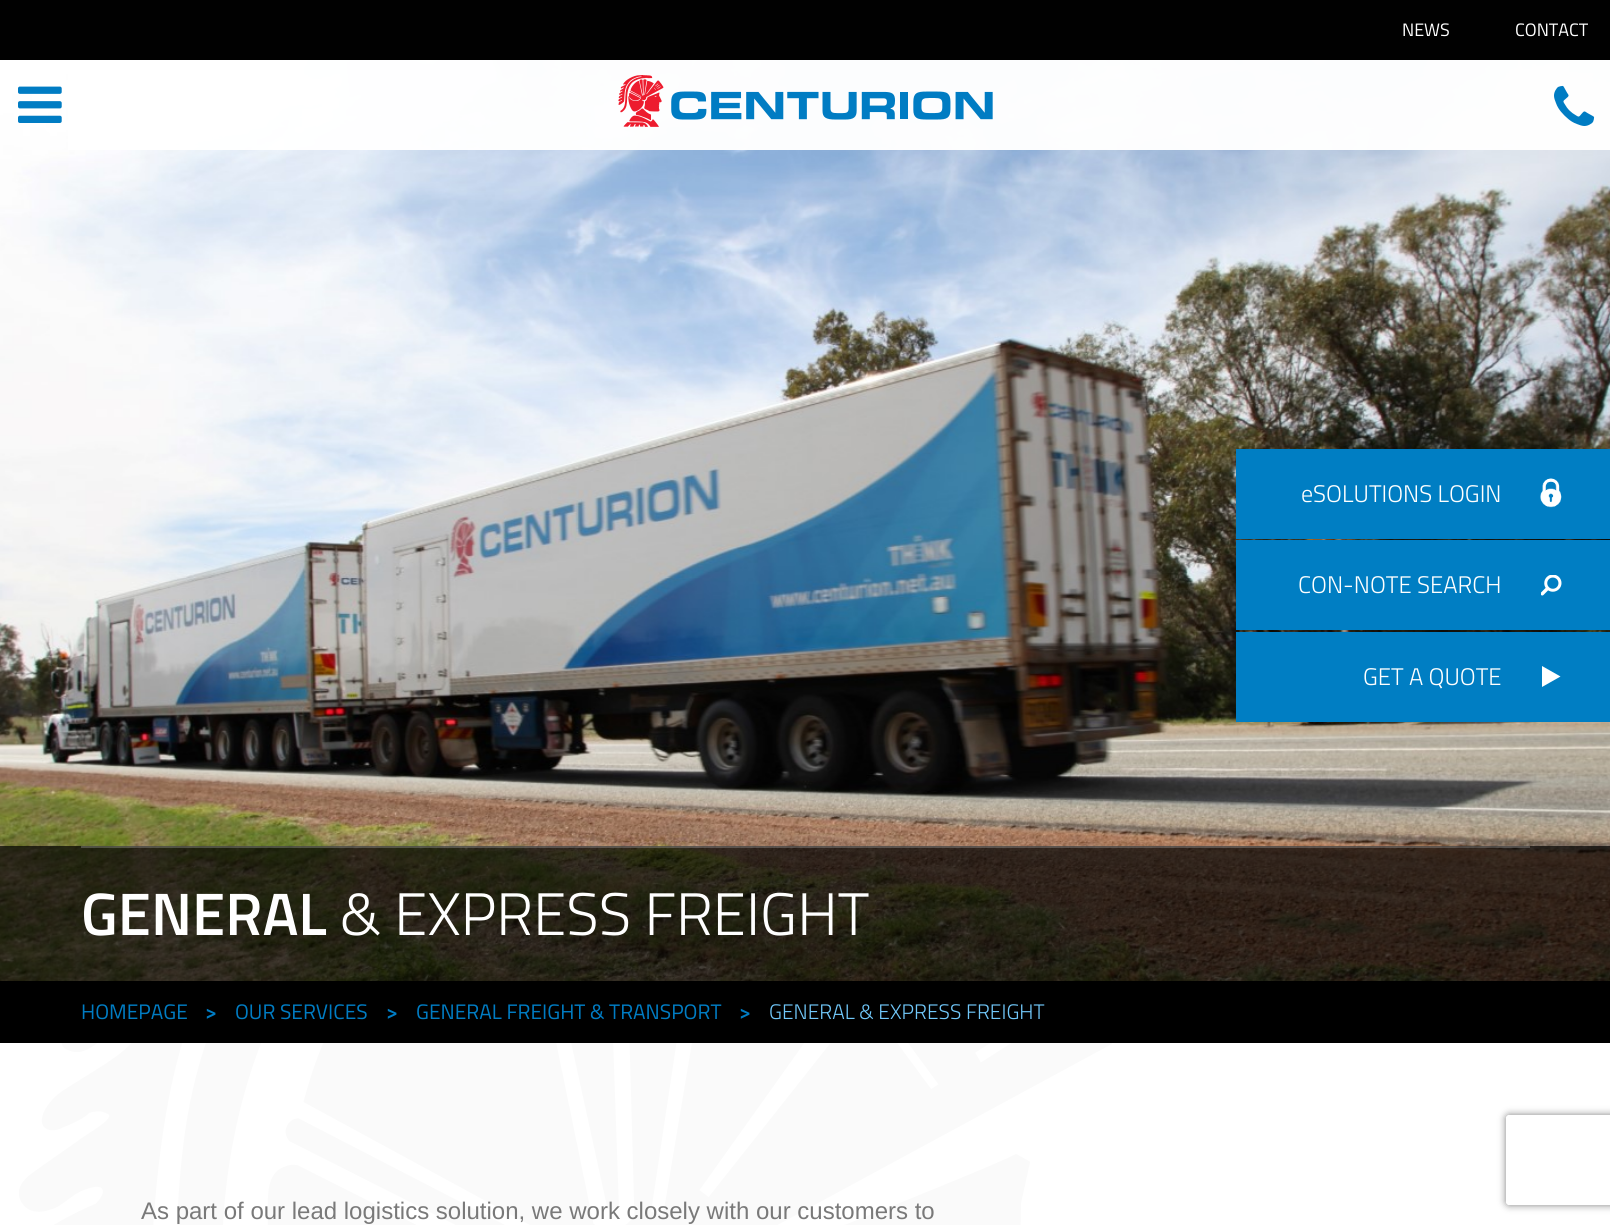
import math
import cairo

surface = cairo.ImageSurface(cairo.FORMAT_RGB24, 1610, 1225)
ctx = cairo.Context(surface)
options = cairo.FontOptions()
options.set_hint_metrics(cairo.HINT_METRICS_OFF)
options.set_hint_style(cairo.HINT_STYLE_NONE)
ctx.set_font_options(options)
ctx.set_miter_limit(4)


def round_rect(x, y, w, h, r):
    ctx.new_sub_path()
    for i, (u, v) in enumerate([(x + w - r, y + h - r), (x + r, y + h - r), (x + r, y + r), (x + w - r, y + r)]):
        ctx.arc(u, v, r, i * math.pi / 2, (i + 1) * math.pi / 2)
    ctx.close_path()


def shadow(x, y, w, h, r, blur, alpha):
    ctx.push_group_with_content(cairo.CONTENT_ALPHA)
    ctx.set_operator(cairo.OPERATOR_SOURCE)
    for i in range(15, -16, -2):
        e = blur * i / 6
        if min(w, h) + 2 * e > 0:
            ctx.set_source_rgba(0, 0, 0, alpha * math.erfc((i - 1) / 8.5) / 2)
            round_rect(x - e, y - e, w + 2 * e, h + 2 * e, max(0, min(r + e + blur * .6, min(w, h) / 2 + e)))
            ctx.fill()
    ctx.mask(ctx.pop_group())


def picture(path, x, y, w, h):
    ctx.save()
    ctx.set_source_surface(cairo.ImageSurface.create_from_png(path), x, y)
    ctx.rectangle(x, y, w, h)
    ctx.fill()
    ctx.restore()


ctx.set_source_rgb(1, 1, 1)
ctx.paint()
ctx.set_source_rgb(0.004, 0.004, 0.004)
ctx.rectangle(0, 0, 1610, 60)
ctx.fill()
ctx.select_font_face("Titillium Web")
ctx.set_font_size(18)
ctx.set_source_rgb(1, 1, 1)
ctx.move_to(1402, 36)
ctx.show_text("NEWS")
ctx.move_to(1515, 36)
ctx.show_text("CONTACT")
picture("img6.png", 0, 60, 1610, 921)
ctx.set_source_rgba(1, 1, 1, 0.97)
ctx.rectangle(68, 60, 1542, 90)
ctx.fill()
picture("img1.png", 18, 86, 44, 37)
picture("img2.png", 618, 75, 375, 52)
picture("img3.png", 1554, 85, 41, 41)
ctx.set_source_rgb(0, 0.494, 0.765)
ctx.rectangle(1236, 449, 374, 90)
ctx.fill()
ctx.select_font_face("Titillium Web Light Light")
ctx.set_font_size(24)
ctx.set_source_rgb(1, 1, 1)
ctx.move_to(1301, 502)
ctx.show_text("eSOLUTIONS LOGIN")
picture("img4.png", 1540, 478, 22, 30)
ctx.set_source_rgb(0, 0.494, 0.765)
ctx.rectangle(1236, 540, 374, 90)
ctx.fill()
ctx.set_source_rgb(1, 1, 1)
ctx.move_to(1298, 593)
ctx.show_text("CON-NOTE SEARCH")
picture("img5.png", 1541, 575, 21, 21)
ctx.set_source_rgb(0, 0.494, 0.765)
ctx.rectangle(1236, 632, 374, 90)
ctx.fill()
ctx.set_source_rgb(1, 1, 1)
ctx.move_to(1363, 685)
ctx.show_text("GET A QUOTE")
ctx.set_fill_rule(cairo.FILL_RULE_EVEN_ODD)
ctx.new_path()
ctx.move_to(1560.5, 676.5)
ctx.line_to(1542, 687)
ctx.line_to(1542, 666)
ctx.close_path()
ctx.fill()
ctx.set_source_rgba(0, 0, 0, 0.7)
ctx.rectangle(0, 846, 1610, 135)
ctx.fill()
ctx.set_source_rgba(0.753, 0.753, 0.749, 0.3)
ctx.rectangle(81, 846, 1449, 2)
ctx.fill()
ctx.select_font_face("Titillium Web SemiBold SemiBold")
ctx.set_font_size(60)
ctx.set_source_rgb(1, 1, 1)
ctx.move_to(81, 935)
ctx.show_text("GENERAL")
ctx.select_font_face("Titillium Web Light Light")
ctx.move_to(340, 935)
ctx.show_text("& EXPRESS FREIGHT")
ctx.set_source_rgb(0, 0, 0)
ctx.rectangle(0, 981, 1610, 62)
ctx.fill()
ctx.select_font_face("Titillium Web")
ctx.set_font_size(21)
ctx.set_source_rgb(0, 0.486, 0.765)
ctx.move_to(81, 1019)
ctx.show_text("HOMEPAGE")
ctx.select_font_face("Titillium Web SemiBold SemiBold")
ctx.move_to(205, 1019)
ctx.show_text(">")
ctx.select_font_face("Titillium Web")
ctx.move_to(235, 1019)
ctx.show_text("OUR SERVICES")
ctx.select_font_face("Titillium Web SemiBold SemiBold")
ctx.move_to(386, 1019)
ctx.show_text(">")
ctx.select_font_face("Titillium Web")
ctx.move_to(416, 1019)
ctx.show_text("GENERAL FREIGHT & TRANSPORT")
ctx.select_font_face("Titillium Web SemiBold SemiBold")
ctx.move_to(739, 1019)
ctx.show_text(">")
ctx.select_font_face("Titillium Web Light Light")
ctx.set_source_rgb(0.443, 0.784, 0.98)
ctx.move_to(769, 1019)
ctx.show_text("GENERAL & EXPRESS FREIGHT")
picture("img7.png", 19, 1043, 1093, 182)
ctx.select_font_face("Liberation Sans")
ctx.set_font_size(24)
ctx.set_source_rgb(0.475, 0.475, 0.475)
ctx.move_to(141, 1219)
ctx.show_text("As part of our lead logistics solution, we work closely with our customers to")
ctx.save()
ctx.new_path()
ctx.move_to(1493, 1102)
ctx.line_to(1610, 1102)
ctx.line_to(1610, 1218)
ctx.line_to(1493, 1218)
ctx.close_path()
ctx.move_to(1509, 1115)
ctx.line_to(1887, 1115)
ctx.curve_to(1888.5, 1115, 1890, 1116.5, 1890, 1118)
ctx.line_to(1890, 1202)
ctx.curve_to(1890, 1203.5, 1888.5, 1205, 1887, 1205)
ctx.line_to(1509, 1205)
ctx.curve_to(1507.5, 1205, 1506, 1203.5, 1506, 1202)
ctx.line_to(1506, 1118)
ctx.curve_to(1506, 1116.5, 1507.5, 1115, 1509, 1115)
ctx.close_path()
ctx.clip()
ctx.set_source_rgb(0.502, 0.502, 0.502)
shadow(1506, 1115, 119, 90, 3, 4, 1)
ctx.restore()
surface.write_to_png("page.png")
